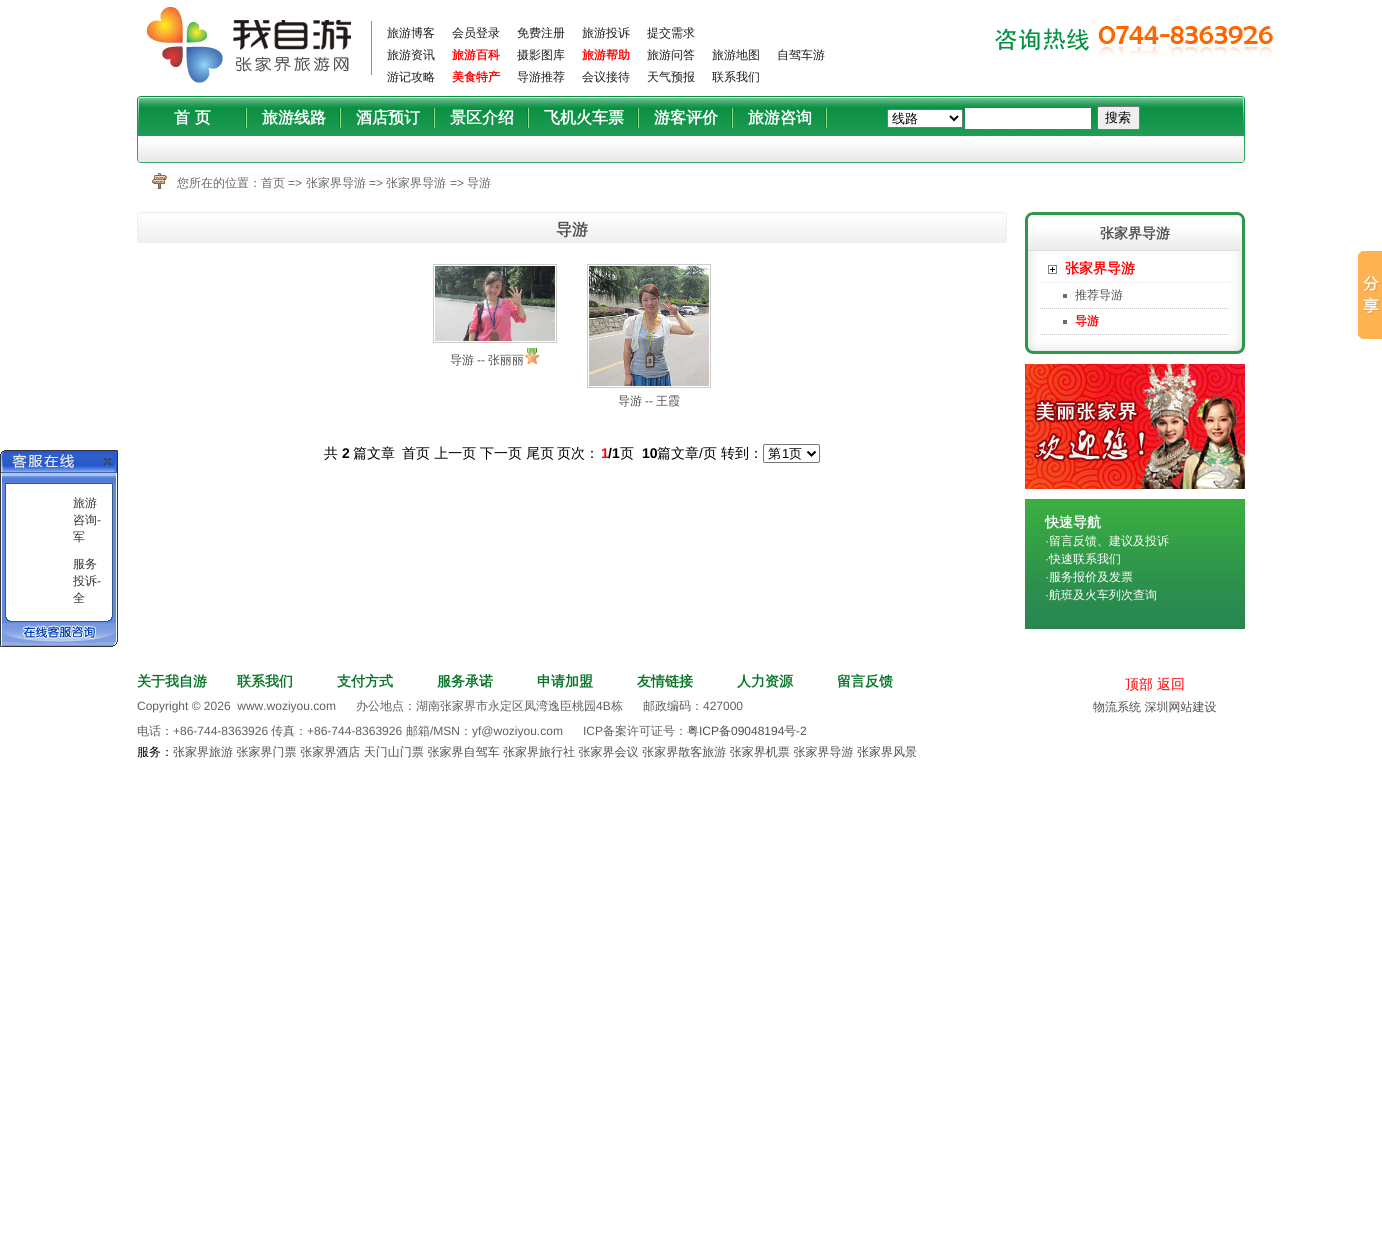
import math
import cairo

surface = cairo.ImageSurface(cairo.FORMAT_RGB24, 1382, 1252)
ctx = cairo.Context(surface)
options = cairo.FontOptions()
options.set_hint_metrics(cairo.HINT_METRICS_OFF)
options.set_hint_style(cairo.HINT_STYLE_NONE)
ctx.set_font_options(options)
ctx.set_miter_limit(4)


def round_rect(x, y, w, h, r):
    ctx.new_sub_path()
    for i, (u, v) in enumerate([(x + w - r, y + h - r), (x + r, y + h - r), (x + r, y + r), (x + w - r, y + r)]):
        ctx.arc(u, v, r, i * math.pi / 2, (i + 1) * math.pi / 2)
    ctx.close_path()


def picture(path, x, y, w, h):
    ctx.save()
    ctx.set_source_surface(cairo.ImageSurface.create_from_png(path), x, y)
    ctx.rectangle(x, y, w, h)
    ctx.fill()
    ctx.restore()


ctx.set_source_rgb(1, 1, 1)
ctx.paint()
picture("img1.png", 147, 7, 225, 76)
ctx.select_font_face("WenQuanYi Zen Hei Medium")
ctx.set_font_size(12)
ctx.set_source_rgb(0.122, 0.102, 0.09)
ctx.move_to(387, 37)
ctx.show_text("旅游博客")
ctx.move_to(452, 37)
ctx.show_text("会员登录")
ctx.move_to(517, 37)
ctx.show_text("免费注册")
ctx.move_to(582, 37)
ctx.show_text("旅游投诉")
ctx.move_to(647, 37)
ctx.show_text("提交需求")
ctx.move_to(387, 59)
ctx.show_text("旅游资讯")
ctx.select_font_face("WenQuanYi Zen Hei", cairo.FONT_SLANT_NORMAL, cairo.FONT_WEIGHT_BOLD)
ctx.set_source_rgb(1, 0, 0)
ctx.move_to(452, 59)
ctx.show_text("旅游百科")
ctx.select_font_face("WenQuanYi Zen Hei Medium")
ctx.set_source_rgb(0.122, 0.102, 0.09)
ctx.move_to(517, 59)
ctx.show_text("摄影图库")
ctx.select_font_face("WenQuanYi Zen Hei", cairo.FONT_SLANT_NORMAL, cairo.FONT_WEIGHT_BOLD)
ctx.set_source_rgb(1, 0, 0)
ctx.move_to(582, 59)
ctx.show_text("旅游帮助")
ctx.select_font_face("WenQuanYi Zen Hei Medium")
ctx.set_source_rgb(0.122, 0.102, 0.09)
ctx.move_to(647, 59)
ctx.show_text("旅游问答")
ctx.move_to(712, 59)
ctx.show_text("旅游地图")
ctx.move_to(777, 59)
ctx.show_text("自驾车游")
ctx.move_to(387, 81)
ctx.show_text("游记攻略")
ctx.select_font_face("WenQuanYi Zen Hei", cairo.FONT_SLANT_NORMAL, cairo.FONT_WEIGHT_BOLD)
ctx.set_source_rgb(1, 0, 0)
ctx.move_to(452, 81)
ctx.show_text("美食特产")
ctx.select_font_face("WenQuanYi Zen Hei Medium")
ctx.set_source_rgb(0.122, 0.102, 0.09)
ctx.move_to(517, 81)
ctx.show_text("导游推荐")
ctx.move_to(582, 81)
ctx.show_text("会议接待")
ctx.move_to(647, 81)
ctx.show_text("天气预报")
ctx.move_to(712, 81)
ctx.show_text("联系我们")
picture("img2.png", 995, 25, 278, 31)
picture("img3.png", 149, 96, 1087, 67)
picture("img4.png", 137, 96, 12, 67)
picture("img5.png", 245, 108, 2, 20)
ctx.select_font_face("WenQuanYi Zen Hei", cairo.FONT_SLANT_NORMAL, cairo.FONT_WEIGHT_BOLD)
ctx.set_font_size(16)
ctx.set_source_rgb(1, 1, 1)
ctx.move_to(174, 123)
ctx.show_text("首 页")
picture("img5.png", 339, 108, 2, 20)
ctx.move_to(262, 123)
ctx.show_text("旅游线路")
picture("img5.png", 433, 108, 2, 20)
ctx.move_to(356, 123)
ctx.show_text("酒店预订")
picture("img5.png", 527, 108, 2, 20)
ctx.move_to(450, 123)
ctx.show_text("景区介绍")
picture("img5.png", 637, 108, 2, 20)
ctx.move_to(544, 123)
ctx.show_text("飞机火车票")
picture("img5.png", 731, 108, 2, 20)
ctx.move_to(654, 123)
ctx.show_text("游客评价")
picture("img5.png", 825, 108, 2, 20)
ctx.move_to(748, 123)
ctx.show_text("旅游咨询")
round_rect(887.5, 109.5, 75, 18, 1.5)
ctx.fill_preserve()
ctx.set_source_rgb(0.463, 0.463, 0.463)
ctx.set_line_width(1)
ctx.stroke()
ctx.new_path()
ctx.move_to(950, 116)
ctx.line_to(954, 120)
ctx.line_to(958, 116)
ctx.set_source_rgb(0, 0, 0)
ctx.set_line_width(2)
ctx.stroke()
ctx.select_font_face("WenQuanYi Zen Hei Medium")
ctx.set_font_size(13)
ctx.move_to(892, 123)
ctx.show_text("线路")
ctx.set_source_rgb(1, 1, 1)
ctx.rectangle(965, 108, 126, 21)
ctx.fill()
ctx.set_source_rgb(0.937, 0.937, 0.937)
round_rect(1097.5, 106.5, 42, 23, 1.5)
ctx.fill_preserve()
ctx.set_source_rgb(0.463, 0.463, 0.463)
ctx.set_line_width(1)
ctx.stroke()
ctx.set_source_rgb(0, 0, 0)
ctx.move_to(1105, 122)
ctx.show_text("搜索")
picture("img6.png", 1236, 96, 9, 67)
picture("img7.png", 152, 173, 15, 16)
ctx.set_font_size(12)
ctx.set_source_rgb(0.404, 0.404, 0.404)
ctx.move_to(177, 187)
ctx.show_text("您所在的位置：首页")
ctx.select_font_face("Liberation Sans")
ctx.move_to(288, 187)
ctx.show_text("=>")
ctx.select_font_face("WenQuanYi Zen Hei Medium")
ctx.move_to(306, 187)
ctx.show_text("张家界导游")
ctx.select_font_face("Liberation Sans")
ctx.move_to(369, 187)
ctx.show_text("=>")
ctx.select_font_face("WenQuanYi Zen Hei Medium")
ctx.move_to(386, 187)
ctx.show_text("张家界导游")
ctx.select_font_face("Liberation Sans")
ctx.move_to(450, 187)
ctx.show_text("=>")
ctx.select_font_face("WenQuanYi Zen Hei Medium")
ctx.move_to(467, 187)
ctx.show_text("导游")
picture("img8.png", 137, 212, 870, 31)
ctx.select_font_face("WenQuanYi Zen Hei", cairo.FONT_SLANT_NORMAL, cairo.FONT_WEIGHT_BOLD)
ctx.set_font_size(16)
ctx.set_source_rgb(0.314, 0.314, 0.314)
ctx.move_to(556, 235)
ctx.show_text("导游")
ctx.rectangle(433.5, 264.5, 123, 78)
ctx.set_source_rgb(0.8, 0.8, 0.8)
ctx.stroke()
picture("img9.png", 435, 266, 120, 75)
ctx.select_font_face("WenQuanYi Zen Hei Medium")
ctx.set_font_size(12)
ctx.set_source_rgb(0.314, 0.314, 0.314)
ctx.move_to(450, 364)
ctx.show_text("导游")
ctx.select_font_face("Liberation Sans")
ctx.move_to(477, 364)
ctx.show_text("--")
ctx.select_font_face("WenQuanYi Zen Hei Medium")
ctx.move_to(488, 364)
ctx.show_text("张丽丽")
picture("img10.png", 525, 348, 15, 16)
ctx.rectangle(587.5, 264.5, 123, 123)
ctx.set_source_rgb(0.8, 0.8, 0.8)
ctx.stroke()
picture("img11.png", 589, 266, 120, 120)
ctx.set_source_rgb(0.314, 0.314, 0.314)
ctx.move_to(618, 405)
ctx.show_text("导游")
ctx.select_font_face("Liberation Sans")
ctx.move_to(645, 405)
ctx.show_text("--")
ctx.select_font_face("WenQuanYi Zen Hei Medium")
ctx.move_to(656, 405)
ctx.show_text("王霞")
ctx.set_font_size(14)
ctx.set_source_rgb(0, 0, 0)
ctx.move_to(324, 458)
ctx.show_text("共")
ctx.select_font_face("Liberation Sans", cairo.FONT_SLANT_NORMAL, cairo.FONT_WEIGHT_BOLD)
ctx.move_to(342, 458)
ctx.show_text("2")
ctx.select_font_face("WenQuanYi Zen Hei Medium")
ctx.move_to(353, 458)
ctx.show_text("篇文章")
ctx.move_to(402, 458)
ctx.show_text("首页 上一页")
ctx.move_to(480, 458)
ctx.show_text("下一页 尾页")
ctx.move_to(557, 458)
ctx.show_text("页次：")
ctx.select_font_face("Liberation Sans", cairo.FONT_SLANT_NORMAL, cairo.FONT_WEIGHT_BOLD)
ctx.set_source_rgb(1, 0, 0)
ctx.move_to(601, 458)
ctx.show_text("1")
ctx.set_source_rgb(0, 0, 0)
ctx.move_to(608, 458)
ctx.show_text("/1")
ctx.select_font_face("WenQuanYi Zen Hei Medium")
ctx.move_to(620, 458)
ctx.show_text("页")
ctx.select_font_face("Liberation Sans", cairo.FONT_SLANT_NORMAL, cairo.FONT_WEIGHT_BOLD)
ctx.move_to(642, 458)
ctx.show_text("10")
ctx.select_font_face("WenQuanYi Zen Hei Medium")
ctx.move_to(657, 458)
ctx.show_text("篇文章")
ctx.select_font_face("Liberation Sans")
ctx.move_to(699, 458)
ctx.show_text("/")
ctx.select_font_face("WenQuanYi Zen Hei Medium")
ctx.move_to(703, 458)
ctx.show_text("页")
ctx.move_to(721, 458)
ctx.show_text("转到：")
round_rect(763.5, 444.5, 56, 18, 1.5)
ctx.set_source_rgb(0.463, 0.463, 0.463)
ctx.stroke()
ctx.new_path()
ctx.move_to(807.5, 451.5)
ctx.line_to(811.5, 455.5)
ctx.line_to(815.5, 451.5)
ctx.set_source_rgb(0, 0, 0)
ctx.set_line_width(2)
ctx.stroke()
ctx.set_font_size(13)
ctx.move_to(768, 458)
ctx.show_text("第")
ctx.select_font_face("Liberation Sans")
ctx.move_to(782, 458)
ctx.show_text("1")
ctx.select_font_face("WenQuanYi Zen Hei Medium")
ctx.move_to(789, 458)
ctx.show_text("页")
picture("img12.png", 1025, 212, 220, 39)
ctx.select_font_face("WenQuanYi Zen Hei", cairo.FONT_SLANT_NORMAL, cairo.FONT_WEIGHT_BOLD)
ctx.set_font_size(14)
ctx.set_source_rgb(0.314, 0.314, 0.314)
ctx.move_to(1100, 238)
ctx.show_text("张家界导游")
picture("img13.png", 1025, 251, 220, 89)
picture("img14.png", 1048, 265, 9, 9)
ctx.set_source_rgb(0.945, 0.945, 0.945)
ctx.rectangle(1040, 282, 190, 1)
ctx.fill()
ctx.set_source_rgb(1, 0, 0)
ctx.move_to(1065, 273)
ctx.show_text("张家界导游")
ctx.set_source_rgb(0.42, 0.42, 0.42)
ctx.rectangle(1063, 294, 4, 4)
ctx.fill()
ctx.new_path()
ctx.move_to(1040, 308.5)
ctx.line_to(1230, 308.5)
ctx.set_source_rgb(0.8, 0.8, 0.8)
ctx.set_line_width(1)
ctx.set_dash([1, 1])
ctx.stroke()
ctx.select_font_face("WenQuanYi Zen Hei Medium")
ctx.set_font_size(12)
ctx.set_source_rgb(0.314, 0.314, 0.314)
ctx.move_to(1075, 299)
ctx.show_text("推荐导游")
ctx.set_source_rgb(0.42, 0.42, 0.42)
ctx.rectangle(1063, 320, 4, 4)
ctx.fill()
ctx.new_path()
ctx.move_to(1040, 334.5)
ctx.line_to(1230, 334.5)
ctx.set_source_rgb(0.8, 0.8, 0.8)
ctx.stroke()
ctx.select_font_face("WenQuanYi Zen Hei", cairo.FONT_SLANT_NORMAL, cairo.FONT_WEIGHT_BOLD)
ctx.set_source_rgb(1, 0, 0)
ctx.move_to(1075, 325)
ctx.show_text("导游")
picture("img15.png", 1025, 340, 220, 14)
picture("img16.png", 1025, 364, 220, 125)
picture("img17.png", 1025, 499, 220, 130)
ctx.set_font_size(14)
ctx.set_source_rgb(1, 1, 1)
ctx.move_to(1045, 527)
ctx.show_text("快速导航")
ctx.select_font_face("Liberation Sans")
ctx.set_font_size(12)
ctx.move_to(1045, 545)
ctx.show_text("·")
ctx.select_font_face("WenQuanYi Zen Hei Medium")
ctx.move_to(1049, 545)
ctx.show_text("留言反馈、建议及投诉")
ctx.select_font_face("Liberation Sans")
ctx.move_to(1045, 563)
ctx.show_text("·")
ctx.select_font_face("WenQuanYi Zen Hei Medium")
ctx.move_to(1049, 563)
ctx.show_text("快速联系我们")
ctx.select_font_face("Liberation Sans")
ctx.move_to(1045, 581)
ctx.show_text("·")
ctx.select_font_face("WenQuanYi Zen Hei Medium")
ctx.move_to(1049, 581)
ctx.show_text("服务报价及发票")
ctx.select_font_face("Liberation Sans")
ctx.move_to(1045, 599)
ctx.show_text("·")
ctx.select_font_face("WenQuanYi Zen Hei Medium")
ctx.move_to(1049, 599)
ctx.show_text("航班及火车列次查询")
picture("img18.png", 1358, 251, 24, 88)
picture("img19.png", 0, 450, 118, 40)
picture("img20.png", 0, 490, 118, 122)
ctx.set_source_rgb(0.2, 0.2, 0.2)
ctx.move_to(73, 507)
ctx.show_text("旅游")
ctx.move_to(73, 524)
ctx.show_text("咨询")
ctx.select_font_face("Liberation Sans")
ctx.move_to(97, 524)
ctx.show_text("-")
ctx.select_font_face("WenQuanYi Zen Hei Medium")
ctx.move_to(73, 541)
ctx.show_text("军")
ctx.move_to(73, 568)
ctx.show_text("服务")
ctx.move_to(73, 585)
ctx.show_text("投诉")
ctx.select_font_face("Liberation Sans")
ctx.move_to(97, 585)
ctx.show_text("-")
ctx.select_font_face("WenQuanYi Zen Hei Medium")
ctx.move_to(73, 602)
ctx.show_text("全")
picture("img21.png", 0, 612, 118, 35)
ctx.select_font_face("WenQuanYi Zen Hei", cairo.FONT_SLANT_NORMAL, cairo.FONT_WEIGHT_BOLD)
ctx.set_font_size(14)
ctx.set_source_rgb(0.035, 0.459, 0.161)
ctx.move_to(137, 686)
ctx.show_text("关于我自游")
ctx.move_to(237, 686)
ctx.show_text("联系我们")
ctx.move_to(337, 686)
ctx.show_text("支付方式")
ctx.move_to(437, 686)
ctx.show_text("服务承诺")
ctx.move_to(537, 686)
ctx.show_text("申请加盟")
ctx.move_to(637, 686)
ctx.show_text("友情链接")
ctx.move_to(737, 686)
ctx.show_text("人力资源")
ctx.move_to(837, 686)
ctx.show_text("留言反馈")
ctx.select_font_face("Liberation Sans")
ctx.set_font_size(12)
ctx.set_source_rgb(0.373, 0.373, 0.373)
ctx.move_to(137, 710)
ctx.show_text("Copyright © 2026  www.woziyou.com")
ctx.select_font_face("WenQuanYi Zen Hei Medium")
ctx.move_to(356, 710)
ctx.show_text("办公地点：湖南张家界市永定区凤湾逸臣桃园")
ctx.select_font_face("Liberation Sans")
ctx.move_to(596, 710)
ctx.show_text("4B")
ctx.select_font_face("WenQuanYi Zen Hei Medium")
ctx.move_to(611, 710)
ctx.show_text("栋")
ctx.move_to(643, 710)
ctx.show_text("邮政编码：")
ctx.select_font_face("Liberation Sans")
ctx.move_to(703, 710)
ctx.show_text("427000")
ctx.select_font_face("WenQuanYi Zen Hei Medium")
ctx.move_to(137, 735)
ctx.show_text("电话：")
ctx.select_font_face("Liberation Sans")
ctx.move_to(173, 735)
ctx.show_text("+86-744-8363926")
ctx.select_font_face("WenQuanYi Zen Hei Medium")
ctx.move_to(271, 735)
ctx.show_text("传真：")
ctx.select_font_face("Liberation Sans")
ctx.move_to(307, 735)
ctx.show_text("+86-744-8363926")
ctx.select_font_face("WenQuanYi Zen Hei Medium")
ctx.move_to(406, 735)
ctx.show_text("邮箱")
ctx.select_font_face("Liberation Sans")
ctx.move_to(430, 735)
ctx.show_text("/MSN")
ctx.select_font_face("WenQuanYi Zen Hei Medium")
ctx.move_to(460, 735)
ctx.show_text("：")
ctx.select_font_face("Liberation Sans")
ctx.move_to(472, 735)
ctx.show_text("yf@woziyou.com")
ctx.move_to(583, 735)
ctx.show_text("ICP")
ctx.select_font_face("WenQuanYi Zen Hei Medium")
ctx.move_to(603, 735)
ctx.show_text("备案许可证号：")
ctx.set_source_rgb(0.314, 0.314, 0.314)
ctx.move_to(687, 735)
ctx.show_text("粤")
ctx.select_font_face("Liberation Sans")
ctx.move_to(699, 735)
ctx.show_text("ICP")
ctx.select_font_face("WenQuanYi Zen Hei Medium")
ctx.move_to(719, 735)
ctx.show_text("备")
ctx.select_font_face("Liberation Sans")
ctx.move_to(731, 735)
ctx.show_text("09048194")
ctx.select_font_face("WenQuanYi Zen Hei Medium")
ctx.move_to(784, 735)
ctx.show_text("号")
ctx.select_font_face("Liberation Sans")
ctx.move_to(796, 735)
ctx.show_text("-2")
ctx.select_font_face("WenQuanYi Zen Hei Medium")
ctx.set_source_rgb(0, 0, 0)
ctx.move_to(137, 756)
ctx.show_text("服务：")
ctx.set_source_rgb(0.314, 0.314, 0.314)
ctx.move_to(173, 756)
ctx.show_text("张家界旅游 张家界门票 张家界酒店 天门山门票 张家界自驾车 张家界旅行社 张家界会议 张家界散客旅游 张家界机票 张家界导游 张家界风景")
ctx.set_font_size(14)
ctx.set_source_rgb(1, 0, 0)
ctx.move_to(1125, 689)
ctx.show_text("顶部")
ctx.move_to(1157, 689)
ctx.show_text("返回")
ctx.set_font_size(12)
ctx.set_source_rgb(0.314, 0.314, 0.314)
ctx.move_to(1093, 711)
ctx.show_text("物流系统 深圳网站建设")
surface.write_to_png("page.png")
